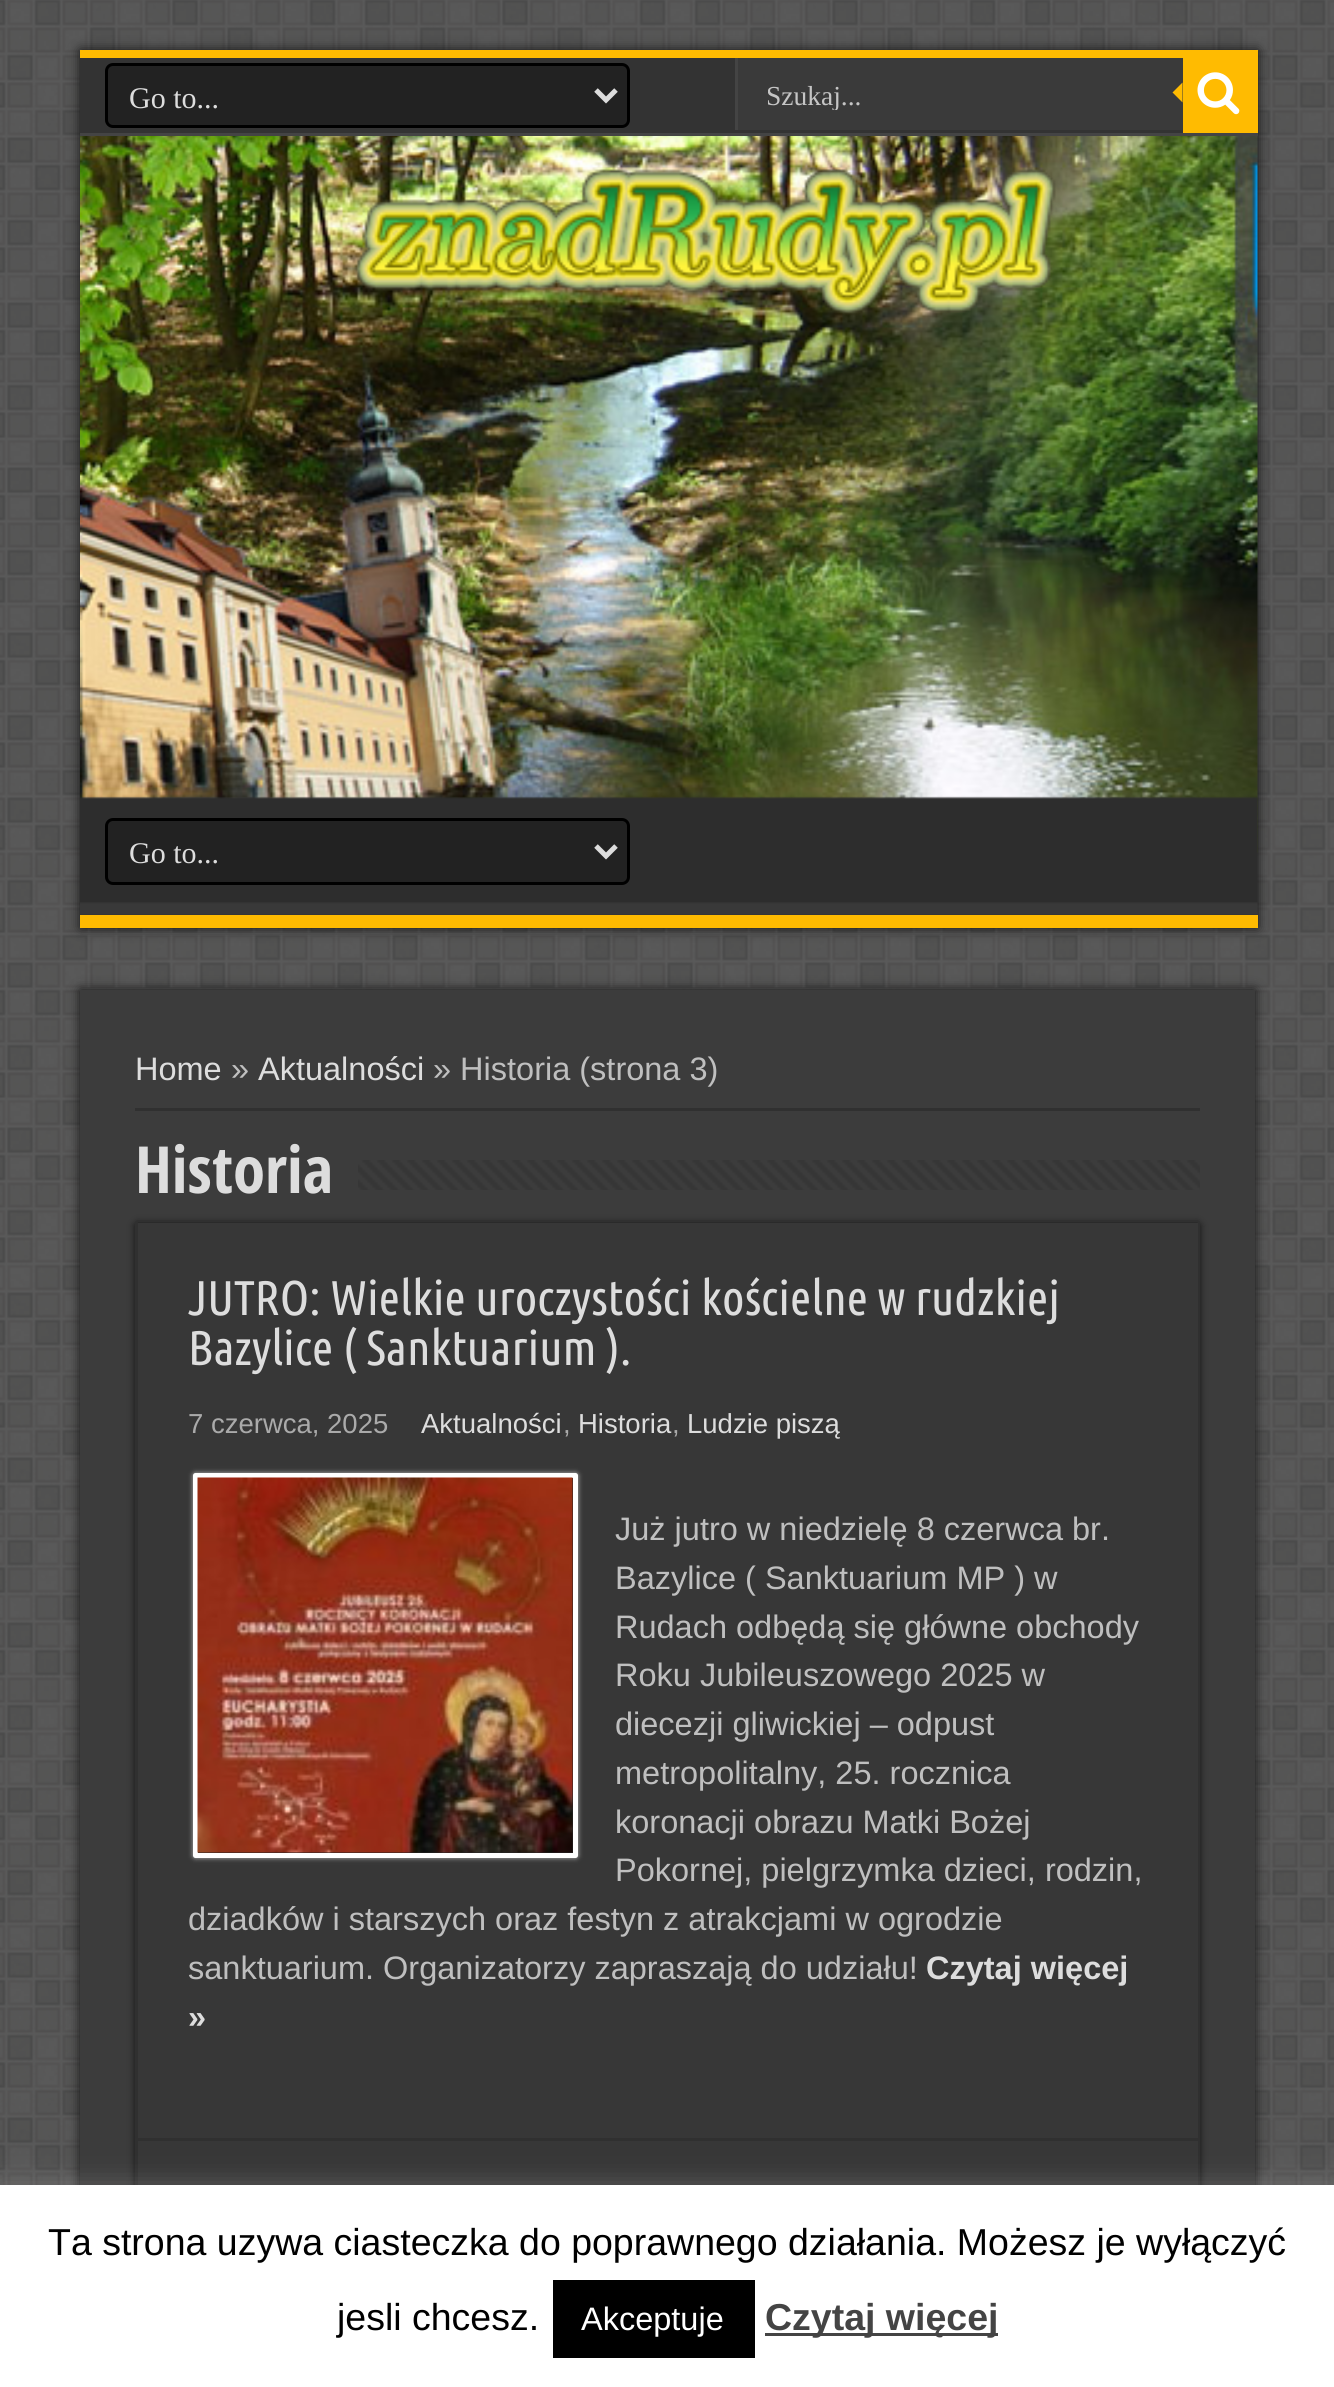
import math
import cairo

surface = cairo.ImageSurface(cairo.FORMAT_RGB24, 1334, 2387)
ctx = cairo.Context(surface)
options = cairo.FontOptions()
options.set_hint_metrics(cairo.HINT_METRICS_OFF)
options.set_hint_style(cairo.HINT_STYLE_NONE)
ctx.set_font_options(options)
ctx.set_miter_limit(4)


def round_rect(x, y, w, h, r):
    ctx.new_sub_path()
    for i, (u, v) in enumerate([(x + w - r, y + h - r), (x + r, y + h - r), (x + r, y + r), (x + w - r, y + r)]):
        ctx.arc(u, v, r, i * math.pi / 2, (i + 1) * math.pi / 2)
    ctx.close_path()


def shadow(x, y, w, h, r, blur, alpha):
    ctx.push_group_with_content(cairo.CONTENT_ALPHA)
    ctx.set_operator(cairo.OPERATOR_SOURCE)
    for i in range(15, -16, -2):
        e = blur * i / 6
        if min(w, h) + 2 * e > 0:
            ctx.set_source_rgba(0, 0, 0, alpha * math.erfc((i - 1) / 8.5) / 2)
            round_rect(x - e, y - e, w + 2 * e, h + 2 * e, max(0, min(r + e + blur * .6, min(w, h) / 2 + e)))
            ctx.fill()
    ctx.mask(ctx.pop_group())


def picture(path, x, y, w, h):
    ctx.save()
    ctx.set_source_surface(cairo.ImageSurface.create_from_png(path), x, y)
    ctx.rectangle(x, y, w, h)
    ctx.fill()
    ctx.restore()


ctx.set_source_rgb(0.188, 0.188, 0.188)
ctx.paint()
picture("img1.png", 0, 0, 1334, 2185)
ctx.set_source_rgb(0.078, 0.078, 0.078)
shadow(80, 50, 1178, 878, 0, 6, 1)
picture("img2.png", 80, 136, 1178, 717)
ctx.set_source_rgb(0.2, 0.2, 0.2)
ctx.rectangle(80, 58, 1103, 75)
ctx.fill()
ctx.set_source_rgb(1, 0.733, 0.004)
ctx.rectangle(80, 50, 1178, 8)
ctx.fill()
ctx.set_source_rgb(0.267, 0.267, 0.267)
ctx.rectangle(80, 133, 1178, 3)
ctx.fill()
ctx.set_source_rgb(0.133, 0.133, 0.133)
round_rect(106.5, 64.5, 522, 62, 6.5)
ctx.fill_preserve()
ctx.set_source_rgb(0, 0, 0)
ctx.set_line_width(3)
ctx.stroke()
ctx.new_path()
ctx.move_to(596, 90)
ctx.line_to(606, 100)
ctx.line_to(616, 90)
ctx.set_source_rgb(0.867, 0.867, 0.867)
ctx.set_line_width(5)
ctx.stroke()
ctx.select_font_face("Liberation Serif")
ctx.set_font_size(30)
ctx.move_to(129, 108)
ctx.show_text("Go to...")
ctx.set_source_rgb(0.227, 0.227, 0.227)
ctx.rectangle(738, 58, 445, 72)
ctx.fill()
ctx.set_source_rgb(0.267, 0.267, 0.267)
ctx.rectangle(735, 58, 3, 72)
ctx.fill()
ctx.save()
ctx.rectangle(768, 80, 385, 30)
ctx.clip()
ctx.set_font_size(27.5)
ctx.set_source_rgb(0.773, 0.773, 0.773)
ctx.move_to(766, 105)
ctx.show_text("Szukaj...")
ctx.restore()
ctx.set_source_rgb(1, 0.733, 0.004)
ctx.rectangle(1183, 58, 75, 75)
ctx.fill()
picture("img3.png", 1197, 72, 43, 43)
ctx.new_path()
ctx.move_to(1182.5, 82.5)
ctx.line_to(1182.5, 102.5)
ctx.line_to(1172.5, 92.5)
ctx.close_path()
ctx.fill()
picture("img4.png", 354, 167, 702, 148)
picture("img5.png", 80, 796, 1178, 119)
ctx.rectangle(80, 915, 1178, 13)
ctx.fill()
ctx.set_source_rgb(0.133, 0.133, 0.133)
round_rect(106.5, 819.5, 522, 64, 6.5)
ctx.fill_preserve()
ctx.set_source_rgb(0, 0, 0)
ctx.set_line_width(3)
ctx.stroke()
ctx.new_path()
ctx.move_to(596, 846)
ctx.line_to(606, 856)
ctx.line_to(616, 846)
ctx.set_source_rgb(0.867, 0.867, 0.867)
ctx.set_line_width(5)
ctx.stroke()
ctx.move_to(129, 863)
ctx.show_text("Go to...")
ctx.set_source_rgb(0.078, 0.078, 0.078)
shadow(80, 990, 1175, 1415, 0, 6, 1)
ctx.set_source_rgb(0.235, 0.235, 0.235)
ctx.rectangle(80, 990, 1175, 1195)
ctx.fill()
ctx.set_source_rgb(0.188, 0.188, 0.188)
ctx.rectangle(135, 1108, 1065, 3)
ctx.fill()
ctx.select_font_face("Liberation Sans")
ctx.set_font_size(32.5)
ctx.set_source_rgb(0.867, 0.867, 0.867)
ctx.move_to(135, 1080)
ctx.show_text("Home")
ctx.set_source_rgb(0.749, 0.749, 0.749)
ctx.move_to(231, 1080)
ctx.show_text("»")
ctx.set_source_rgb(0.867, 0.867, 0.867)
ctx.move_to(258, 1080)
ctx.show_text("Aktualności")
ctx.set_source_rgb(0.749, 0.749, 0.749)
ctx.move_to(433, 1080)
ctx.show_text("» Historia (strona 3)")
ctx.select_font_face("Open Sans Condensed", cairo.FONT_SLANT_NORMAL, cairo.FONT_WEIGHT_BOLD)
ctx.set_font_size(65)
ctx.set_source_rgb(0.867, 0.867, 0.867)
ctx.move_to(135, 1193)
ctx.show_text("Historia")
picture("img6.png", 358, 1160, 842, 30)
ctx.set_source_rgb(0.078, 0.078, 0.078)
shadow(135, 1223, 1065, 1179, 2.5, 4, 1)
ctx.set_source_rgb(0.216, 0.216, 0.216)
ctx.rectangle(138, 1223, 1060, 962)
ctx.fill()
ctx.set_source_rgb(0.188, 0.188, 0.188)
ctx.new_path()
ctx.move_to(138, 1220)
ctx.line_to(136, 1221)
ctx.line_to(138, 1223)
ctx.line_to(138, 1222)
ctx.line_to(1198, 1222)
ctx.line_to(1199, 1221)
ctx.line_to(1198, 1220)
ctx.close_path()
ctx.fill()
ctx.new_path()
ctx.move_to(1200, 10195)
ctx.line_to(1200, 1222)
ctx.line_to(1199, 1221)
ctx.line_to(1198, 1222)
ctx.line_to(1198, 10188)
ctx.line_to(1200, 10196)
ctx.close_path()
ctx.fill()
ctx.new_path()
ctx.move_to(135, 1222)
ctx.line_to(135, 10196)
ctx.line_to(138, 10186)
ctx.line_to(138, 1223)
ctx.line_to(136, 1221)
ctx.close_path()
ctx.fill()
ctx.rectangle(138, 2138, 1060, 3)
ctx.fill()
ctx.select_font_face("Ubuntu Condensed")
ctx.set_font_size(48.75)
ctx.set_source_rgb(0.867, 0.867, 0.867)
ctx.move_to(188, 1315)
ctx.show_text("JUTRO: Wielkie uroczystości kościelne w rudzkiej")
ctx.move_to(188, 1365)
ctx.show_text("Bazylice ( Sanktuarium ).")
ctx.select_font_face("Liberation Sans")
ctx.set_font_size(27.5)
ctx.set_source_rgb(0.667, 0.667, 0.667)
ctx.move_to(188, 1433)
ctx.show_text("7 czerwca, 2025")
ctx.set_source_rgb(0.867, 0.867, 0.867)
ctx.move_to(421, 1433)
ctx.show_text("Aktualności")
ctx.set_source_rgb(0.667, 0.667, 0.667)
ctx.move_to(563, 1433)
ctx.show_text(",")
ctx.set_source_rgb(0.867, 0.867, 0.867)
ctx.move_to(578, 1433)
ctx.show_text("Historia")
ctx.set_source_rgb(0.667, 0.667, 0.667)
ctx.move_to(672, 1433)
ctx.show_text(",")
ctx.set_source_rgb(0.867, 0.867, 0.867)
ctx.move_to(687, 1433)
ctx.show_text("Ludzie piszą")
ctx.set_source_rgb(0.71, 0.71, 0.71)
shadow(193, 1473, 385, 385, 2.5, 2.5, 1)
ctx.set_source_rgb(1, 1, 1)
round_rect(193, 1473, 385, 385, 2.5)
ctx.fill()
ctx.set_source_rgb(0.153, 0.153, 0.153)
ctx.rectangle(198, 1478, 375, 375)
ctx.fill()
picture("img7.png", 197, 1477, 376, 376)
ctx.set_font_size(32.5)
ctx.set_source_rgb(0.749, 0.749, 0.749)
ctx.move_to(615, 1540)
ctx.show_text("Już jutro w niedzielę 8 czerwca br.")
ctx.move_to(615, 1589)
ctx.show_text("Bazylice ( Sanktuarium MP ) w")
ctx.move_to(615, 1638)
ctx.show_text("Rudach odbędą się główne obchody")
ctx.move_to(615, 1686)
ctx.show_text("Roku Jubileuszowego 2025 w")
ctx.move_to(615, 1735)
ctx.show_text("diecezji gliwickiej – odpust")
ctx.move_to(615, 1784)
ctx.show_text("metropolitalny, 25. rocznica")
ctx.move_to(615, 1833)
ctx.show_text("koronacji obrazu Matki Bożej")
ctx.move_to(615, 1881)
ctx.show_text("Pokornej, pielgrzymka dzieci, rodzin,")
ctx.move_to(188, 1930)
ctx.show_text("dziadków i starszych oraz festyn z atrakcjami w ogrodzie")
ctx.move_to(188, 1979)
ctx.show_text("sanktuarium. Organizatorzy zapraszają do udziału!")
ctx.select_font_face("Liberation Sans", cairo.FONT_SLANT_NORMAL, cairo.FONT_WEIGHT_BOLD)
ctx.set_source_rgb(0.867, 0.867, 0.867)
ctx.move_to(926, 1979)
ctx.show_text("Czytaj więcej")
ctx.move_to(188, 2028)
ctx.show_text("»")
ctx.set_source_rgb(0.675, 0.671, 0.671)
shadow(0, 2183, 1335, 202, 0, 12.5, 0.3)
ctx.set_source_rgb(1, 1, 1)
ctx.rectangle(0, 2185, 1334, 202)
ctx.fill()
ctx.select_font_face("Liberation Sans")
ctx.set_font_size(37.5)
ctx.set_source_rgb(0, 0, 0)
ctx.move_to(48, 2255)
ctx.show_text("Ta strona uzywa ciasteczka do poprawnego działania. Możesz je wyłączyć")
ctx.move_to(337, 2330)
ctx.show_text("jesli chcesz.")
ctx.rectangle(553, 2280, 202, 78)
ctx.fill()
ctx.set_font_size(32.5)
ctx.set_source_rgb(1, 1, 1)
ctx.move_to(581, 2330)
ctx.show_text("Akceptuje")
ctx.set_source_rgb(0.267, 0.267, 0.267)
ctx.rectangle(765, 2333, 233, 3)
ctx.fill()
ctx.select_font_face("Liberation Sans", cairo.FONT_SLANT_NORMAL, cairo.FONT_WEIGHT_BOLD)
ctx.set_font_size(37.5)
ctx.move_to(765, 2330)
ctx.show_text("Czytaj więcej")
surface.write_to_png("page.png")
